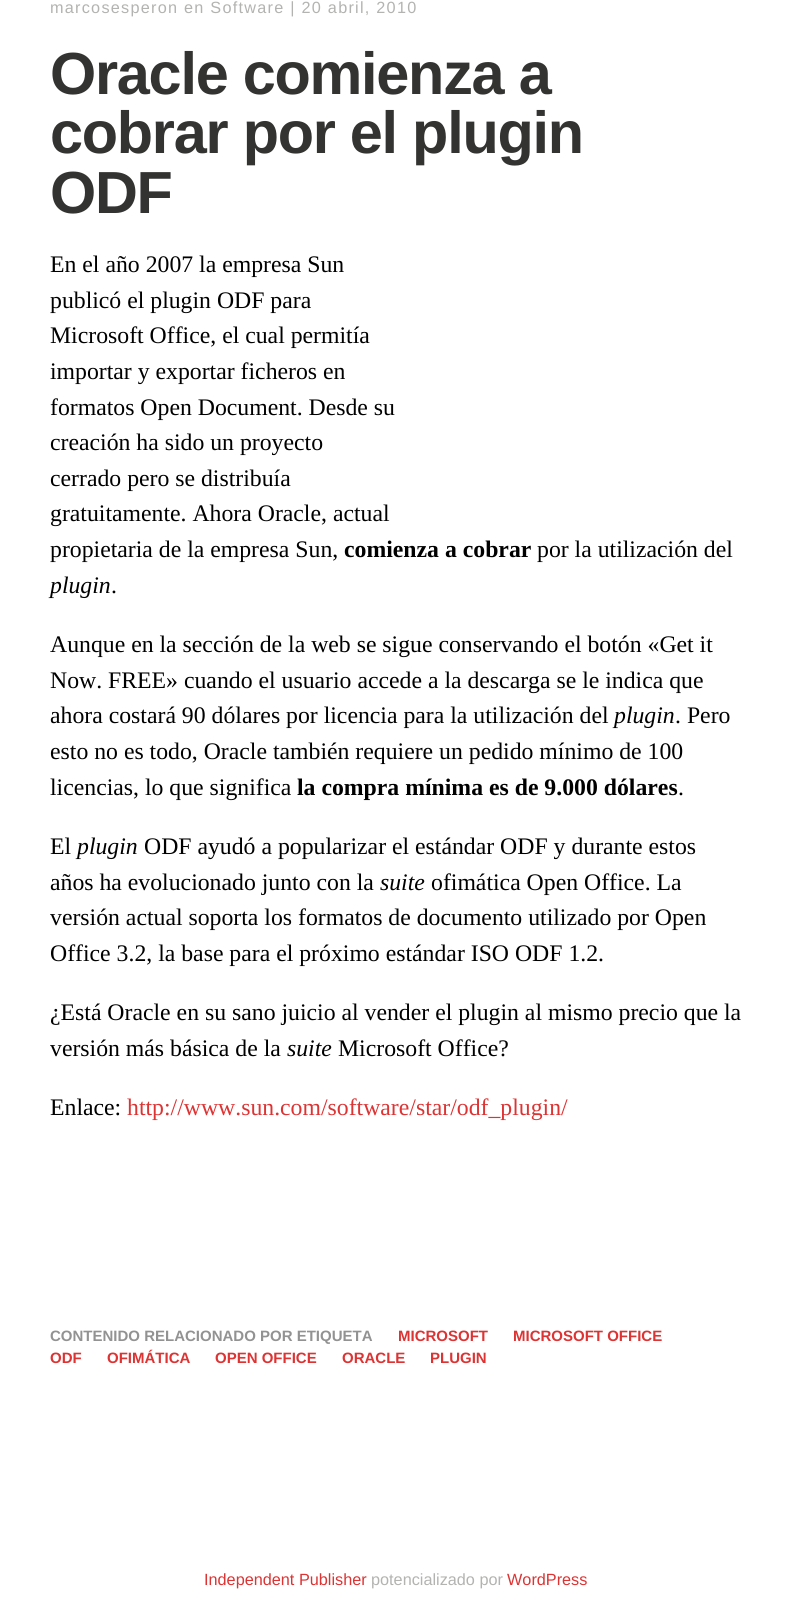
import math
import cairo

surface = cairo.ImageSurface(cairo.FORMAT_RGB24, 791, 1608)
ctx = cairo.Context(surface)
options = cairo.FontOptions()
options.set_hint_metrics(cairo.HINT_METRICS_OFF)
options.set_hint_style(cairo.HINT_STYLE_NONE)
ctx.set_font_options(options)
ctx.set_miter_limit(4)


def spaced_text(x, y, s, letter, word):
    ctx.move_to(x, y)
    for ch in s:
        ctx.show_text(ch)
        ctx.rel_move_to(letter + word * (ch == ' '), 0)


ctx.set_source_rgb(1, 1, 1)
ctx.paint()
ctx.select_font_face("Liberation Sans")
ctx.set_font_size(16.25)
ctx.set_source_rgb(0.702, 0.702, 0.694)
spaced_text(50, 13, "marcosesperon en Software | 20 abril, 2010", 1.25, 0)
ctx.select_font_face("Liberation Sans", cairo.FONT_SLANT_NORMAL, cairo.FONT_WEIGHT_BOLD)
ctx.set_font_size(59.4)
ctx.set_source_rgb(0.2, 0.2, 0.196)
spaced_text(50, 94, "Oracle comienza a", -1.25, 0)
spaced_text(50, 153, "cobrar por el plugin", -1.25, 0)
spaced_text(50, 213, "ODF", -1.25, 0)
ctx.select_font_face("Liberation Serif")
ctx.set_font_size(23.75)
ctx.set_source_rgb(0, 0, 0)
ctx.move_to(50, 272)
ctx.show_text("En el año 2007 la empresa Sun")
ctx.move_to(50, 308)
ctx.show_text("publicó el plugin ODF para")
ctx.move_to(50, 343)
ctx.show_text("Microsoft Office, el cual permitía")
ctx.move_to(50, 379)
ctx.show_text("importar y exportar ficheros en")
ctx.move_to(50, 415)
ctx.show_text("formatos Open Document. Desde su")
ctx.move_to(50, 450)
ctx.show_text("creación ha sido un proyecto")
ctx.move_to(50, 486)
ctx.show_text("cerrado pero se distribuía")
ctx.move_to(50, 521)
ctx.show_text("gratuitamente. Ahora Oracle, actual")
ctx.move_to(50, 557)
ctx.show_text("propietaria de la empresa Sun,")
ctx.select_font_face("Liberation Serif", cairo.FONT_SLANT_NORMAL, cairo.FONT_WEIGHT_BOLD)
ctx.move_to(344, 557)
ctx.show_text("comienza a cobrar")
ctx.select_font_face("Liberation Serif")
ctx.move_to(537, 557)
ctx.show_text("por la utilización del")
ctx.select_font_face("Liberation Serif", cairo.FONT_SLANT_ITALIC)
ctx.move_to(50, 593)
ctx.show_text("plugin")
ctx.select_font_face("Liberation Serif")
ctx.move_to(111, 593)
ctx.show_text(".")
ctx.move_to(50, 652)
ctx.show_text("Aunque en la sección de la web se sigue conservando el botón «Get it")
ctx.move_to(50, 688)
ctx.show_text("Now. FREE» cuando el usuario accede a la descarga se le indica que")
ctx.move_to(50, 723)
ctx.show_text("ahora costará 90 dólares por licencia para la utilización del")
ctx.select_font_face("Liberation Serif", cairo.FONT_SLANT_ITALIC)
ctx.move_to(614, 723)
ctx.show_text("plugin")
ctx.select_font_face("Liberation Serif")
ctx.move_to(675, 723)
ctx.show_text(". Pero")
ctx.move_to(50, 759)
ctx.show_text("esto no es todo, Oracle también requiere un pedido mínimo de 100")
ctx.move_to(50, 795)
ctx.show_text("licencias, lo que significa")
ctx.select_font_face("Liberation Serif", cairo.FONT_SLANT_NORMAL, cairo.FONT_WEIGHT_BOLD)
ctx.move_to(297, 795)
ctx.show_text("la compra mínima es de 9.000 dólares")
ctx.select_font_face("Liberation Serif")
ctx.move_to(678, 795)
ctx.show_text(".")
ctx.move_to(50, 854)
ctx.show_text("El")
ctx.select_font_face("Liberation Serif", cairo.FONT_SLANT_ITALIC)
ctx.move_to(77, 854)
ctx.show_text("plugin")
ctx.select_font_face("Liberation Serif")
ctx.move_to(144, 854)
ctx.show_text("ODF ayudó a popularizar el estándar ODF y durante estos")
ctx.move_to(50, 890)
ctx.show_text("años ha evolucionado junto con la")
ctx.select_font_face("Liberation Serif", cairo.FONT_SLANT_ITALIC)
ctx.move_to(380, 890)
ctx.show_text("suite")
ctx.select_font_face("Liberation Serif")
ctx.move_to(431, 890)
ctx.show_text("ofimática Open Office. La")
ctx.move_to(50, 925)
ctx.show_text("versión actual soporta los formatos de documento utilizado por Open")
ctx.move_to(50, 961)
ctx.show_text("Office 3.2, la base para el próximo estándar ISO ODF 1.2.")
ctx.move_to(50, 1020)
ctx.show_text("¿Está Oracle en su sano juicio al vender el plugin al mismo precio que la")
ctx.move_to(50, 1056)
ctx.show_text("versión más básica de la")
ctx.select_font_face("Liberation Serif", cairo.FONT_SLANT_ITALIC)
ctx.move_to(287, 1056)
ctx.show_text("suite")
ctx.select_font_face("Liberation Serif")
ctx.move_to(338, 1056)
ctx.show_text("Microsoft Office?")
ctx.move_to(50, 1115)
ctx.show_text("Enlace:")
ctx.set_source_rgb(0.867, 0.2, 0.2)
ctx.move_to(127, 1115)
ctx.show_text("http://www.sun.com/software/star/odf_plugin/")
ctx.select_font_face("Liberation Sans", cairo.FONT_SLANT_NORMAL, cairo.FONT_WEIGHT_BOLD)
ctx.set_font_size(15)
ctx.set_source_rgb(0.573, 0.573, 0.573)
ctx.move_to(50, 1341)
ctx.show_text("CONTENIDO RELACIONADO POR ETIQUETA")
ctx.set_source_rgb(0.867, 0.2, 0.2)
ctx.move_to(398, 1341)
ctx.show_text("MICROSOFT")
ctx.move_to(513, 1341)
ctx.show_text("MICROSOFT OFFICE")
ctx.move_to(50, 1363)
ctx.show_text("ODF")
ctx.move_to(107, 1363)
ctx.show_text("OFIMÁTICA")
ctx.move_to(215, 1363)
ctx.show_text("OPEN OFFICE")
ctx.move_to(342, 1363)
ctx.show_text("ORACLE")
ctx.move_to(430, 1363)
ctx.show_text("PLUGIN")
ctx.select_font_face("Liberation Sans")
ctx.set_font_size(16.25)
ctx.move_to(204, 1585)
ctx.show_text("Independent Publisher")
ctx.set_source_rgb(0.702, 0.702, 0.694)
ctx.move_to(371, 1585)
ctx.show_text("potencializado por")
ctx.set_source_rgb(0.867, 0.2, 0.2)
ctx.move_to(507, 1585)
ctx.show_text("WordPress")
surface.write_to_png("page.png")
